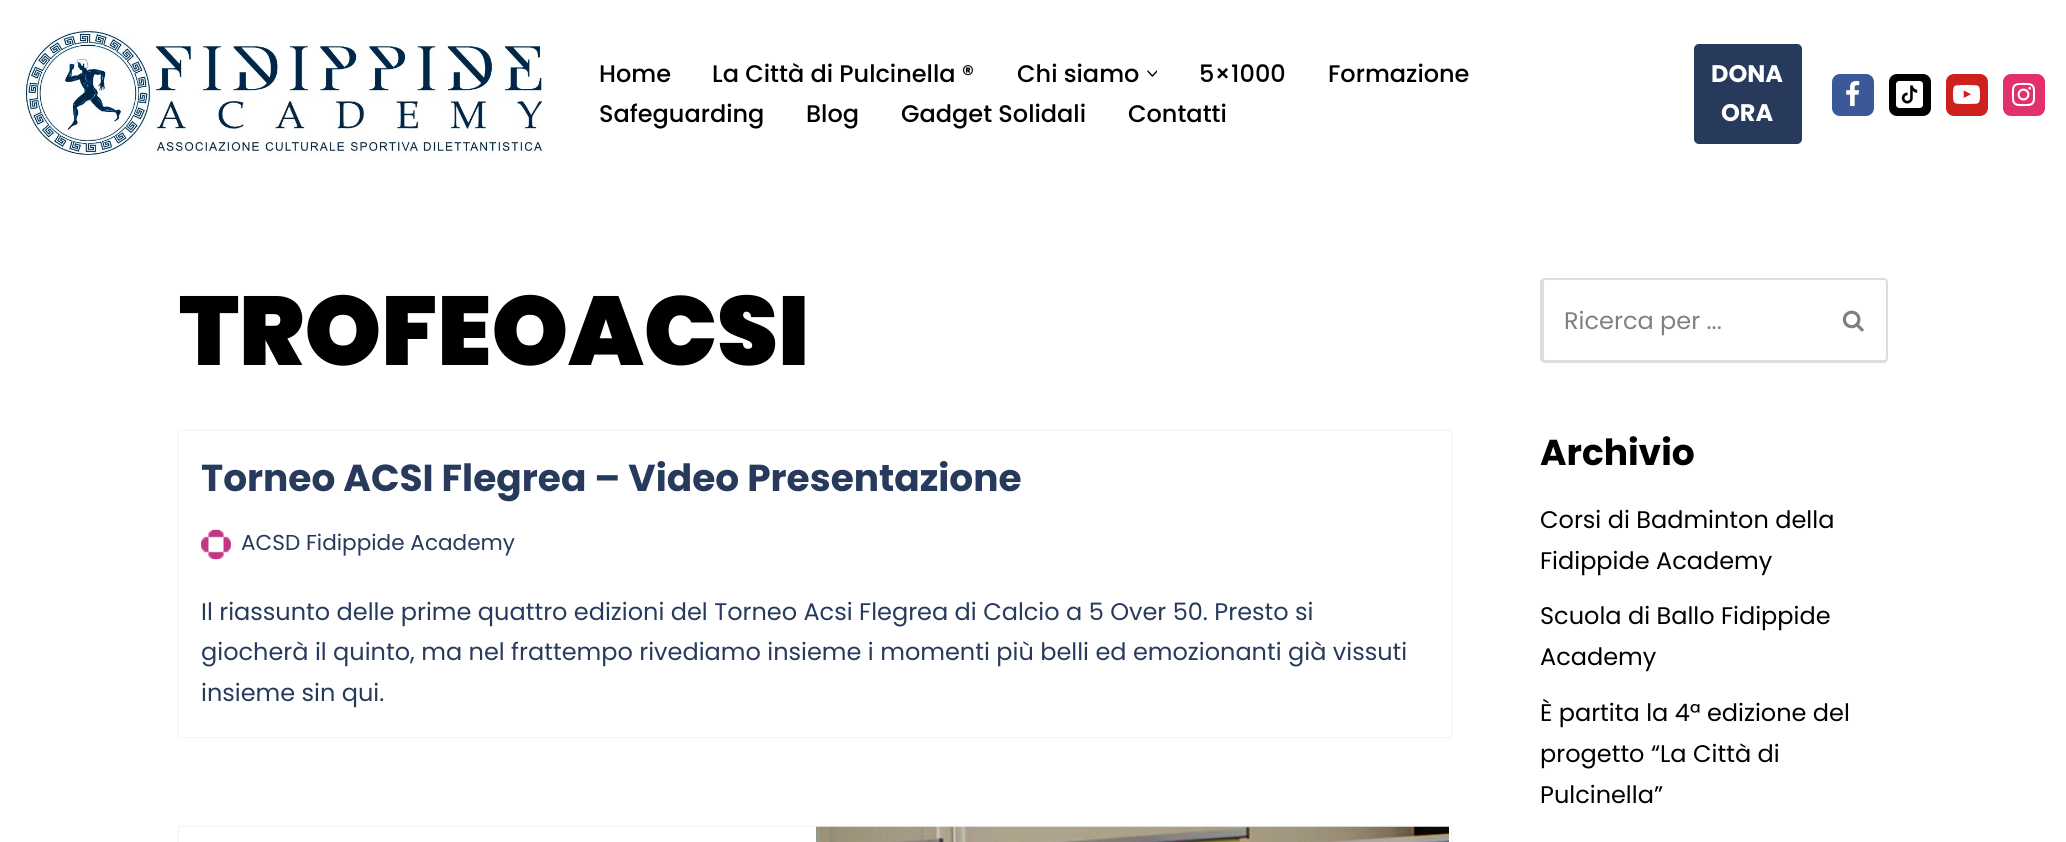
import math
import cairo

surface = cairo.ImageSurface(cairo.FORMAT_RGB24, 2066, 842)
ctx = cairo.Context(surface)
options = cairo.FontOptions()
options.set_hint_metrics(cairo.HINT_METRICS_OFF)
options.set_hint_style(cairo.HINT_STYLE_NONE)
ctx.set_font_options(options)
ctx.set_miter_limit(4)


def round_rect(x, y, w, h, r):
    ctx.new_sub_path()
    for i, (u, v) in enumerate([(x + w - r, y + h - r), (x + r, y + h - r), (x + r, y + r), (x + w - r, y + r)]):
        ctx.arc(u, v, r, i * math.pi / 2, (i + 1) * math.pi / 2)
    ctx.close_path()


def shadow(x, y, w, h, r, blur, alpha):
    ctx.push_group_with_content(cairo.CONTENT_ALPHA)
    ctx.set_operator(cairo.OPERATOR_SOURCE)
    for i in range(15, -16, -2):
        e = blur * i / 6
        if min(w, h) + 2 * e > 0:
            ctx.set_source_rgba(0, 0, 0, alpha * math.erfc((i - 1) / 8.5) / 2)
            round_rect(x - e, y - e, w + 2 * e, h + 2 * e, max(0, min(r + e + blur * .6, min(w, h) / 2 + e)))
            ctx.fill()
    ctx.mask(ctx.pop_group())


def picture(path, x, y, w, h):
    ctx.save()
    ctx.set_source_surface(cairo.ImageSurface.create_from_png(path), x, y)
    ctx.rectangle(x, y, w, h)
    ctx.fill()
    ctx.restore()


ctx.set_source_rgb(1, 1, 1)
ctx.paint()
picture("img1.png", 22, 27, 522, 133)
ctx.select_font_face("Poppins Medium")
ctx.set_font_size(24)
ctx.set_source_rgb(0, 0, 0)
ctx.move_to(599, 82)
ctx.show_text("Home")
ctx.move_to(712, 82)
ctx.show_text("La Città di Pulcinella ®")
ctx.move_to(1017, 82)
ctx.show_text("Chi siamo")
picture("img2.png", 1147, 70, 10, 7)
ctx.move_to(1199, 82)
ctx.show_text("5×1000")
ctx.move_to(1328, 82)
ctx.show_text("Formazione")
ctx.move_to(599, 122)
ctx.show_text("Safeguarding")
ctx.move_to(806, 122)
ctx.show_text("Blog")
ctx.move_to(901, 122)
ctx.show_text("Gadget Solidali")
ctx.move_to(1128, 122)
ctx.show_text("Contatti")
ctx.set_source_rgb(0.157, 0.227, 0.361)
round_rect(1694, 44, 108, 100, 5)
ctx.fill()
ctx.select_font_face("Poppins", cairo.FONT_SLANT_NORMAL, cairo.FONT_WEIGHT_BOLD)
ctx.set_source_rgb(1, 1, 1)
ctx.move_to(1711, 82)
ctx.show_text("DONA")
ctx.move_to(1721, 121)
ctx.show_text("ORA")
ctx.set_source_rgb(0.231, 0.349, 0.596)
round_rect(1832, 74, 42, 42, 8)
ctx.fill()
picture("img3.png", 1846, 81, 14, 26)
ctx.set_source_rgb(0, 0, 0)
round_rect(1889, 74, 42, 42, 8)
ctx.fill()
picture("img4.png", 1896, 81, 27, 27)
ctx.set_source_rgb(0.804, 0.125, 0.122)
round_rect(1946, 74, 42, 42, 8)
ctx.fill()
picture("img5.png", 1953, 85, 27, 19)
ctx.set_source_rgb(0.882, 0.188, 0.424)
round_rect(2003, 74, 42, 42, 8)
ctx.fill()
picture("img6.png", 2011, 82, 25, 25)
ctx.select_font_face("Poppins Black")
ctx.set_font_size(97.5)
ctx.set_source_rgb(0, 0, 0)
ctx.move_to(179, 365)
ctx.show_text("TROFEOACSI")
ctx.set_source_rgb(0, 0, 0)
shadow(179, 431, 1272, 306, 0, 1, 0.13)
ctx.set_source_rgb(1, 1, 1)
ctx.rectangle(179, 431, 1272, 306)
ctx.fill()
ctx.select_font_face("Poppins", cairo.FONT_SLANT_NORMAL, cairo.FONT_WEIGHT_BOLD)
ctx.set_font_size(37.5)
ctx.set_source_rgb(0.157, 0.227, 0.361)
ctx.move_to(201, 491)
ctx.show_text("Torneo ACSI Flegrea – Video Presentazione")
picture("img7.png", 201, 529, 30, 31)
ctx.select_font_face("Poppins")
ctx.set_font_size(21.6)
ctx.move_to(241, 550)
ctx.show_text("ACSD Fidippide Academy")
ctx.set_font_size(24)
ctx.move_to(201, 620)
ctx.show_text("Il riassunto delle prime quattro edizioni del Torneo Acsi Flegrea di Calcio a 5 Over 50. Presto si")
ctx.move_to(201, 660)
ctx.show_text("giocherà il quinto, ma nel frattempo rivediamo insieme i momenti più belli ed emozionanti già vissuti")
ctx.move_to(201, 701)
ctx.show_text("insieme sin qui.")
ctx.set_source_rgb(0, 0, 0)
shadow(179, 827, 1272, 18, 0, 1, 0.13)
ctx.set_source_rgb(1, 1, 1)
ctx.rectangle(179, 827, 1272, 15)
ctx.fill()
picture("img8.png", 816, 826, 633, 16)
ctx.set_source_rgb(0.867, 0.867, 0.867)
ctx.set_fill_rule(cairo.FILL_RULE_EVEN_ODD)
ctx.new_path()
ctx.move_to(1545, 278)
ctx.line_to(1821, 278)
ctx.line_to(1821, 363)
ctx.line_to(1545, 363)
ctx.curve_to(1543, 363, 1540, 361, 1540, 358)
ctx.line_to(1540, 282)
ctx.curve_to(1540, 280, 1543, 278, 1545, 278)
ctx.close_path()
ctx.move_to(1545, 280)
ctx.line_to(1821, 280)
ctx.line_to(1821, 360)
ctx.line_to(1545, 360)
ctx.curve_to(1544, 360, 1544, 359, 1544, 358)
ctx.line_to(1544, 282)
ctx.curve_to(1544, 281, 1544, 280, 1545, 280)
ctx.close_path()
ctx.fill()
ctx.set_source_rgb(0.502, 0.502, 0.502)
ctx.move_to(1564, 329)
ctx.show_text("Ricerca per ...")
ctx.set_source_rgb(0.867, 0.867, 0.867)
ctx.new_path()
ctx.move_to(1821, 278)
ctx.line_to(1884, 278)
ctx.curve_to(1886, 278, 1888, 280, 1888, 282)
ctx.line_to(1888, 358)
ctx.curve_to(1888, 361, 1886, 363, 1884, 363)
ctx.line_to(1821, 363)
ctx.close_path()
ctx.move_to(1821, 280)
ctx.line_to(1884, 280)
ctx.curve_to(1885, 280, 1886, 281, 1886, 282)
ctx.line_to(1886, 358)
ctx.curve_to(1886, 359, 1885, 360, 1884, 360)
ctx.line_to(1821, 360)
ctx.close_path()
ctx.fill()
picture("img9.png", 1842, 310, 22, 22)
ctx.select_font_face("Poppins", cairo.FONT_SLANT_NORMAL, cairo.FONT_WEIGHT_BOLD)
ctx.set_font_size(36)
ctx.set_source_rgb(0, 0, 0)
ctx.move_to(1540, 465)
ctx.show_text("Archivio")
ctx.select_font_face("Poppins")
ctx.set_font_size(24)
ctx.move_to(1540, 528)
ctx.show_text("Corsi di Badminton della")
ctx.move_to(1540, 569)
ctx.show_text("Fidippide Academy")
ctx.move_to(1540, 624)
ctx.show_text("Scuola di Ballo Fidippide")
ctx.move_to(1540, 665)
ctx.show_text("Academy")
ctx.move_to(1540, 721)
ctx.show_text("È partita la 4ª edizione del")
ctx.move_to(1540, 762)
ctx.show_text("progetto “La Città di")
ctx.move_to(1540, 803)
ctx.show_text("Pulcinella”")
surface.write_to_png("page.png")
